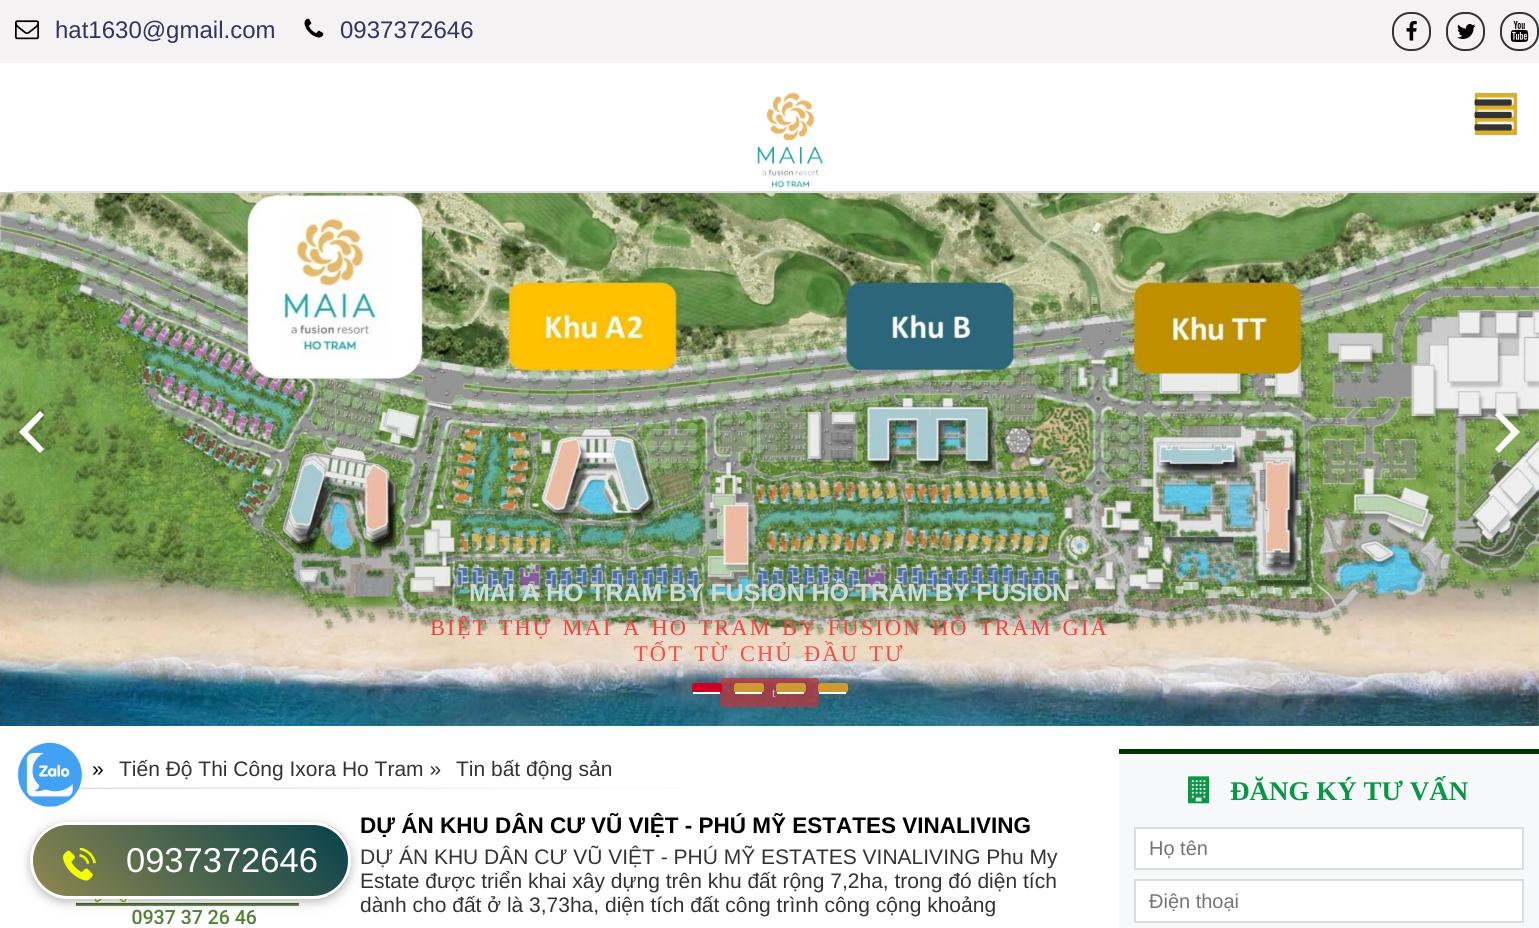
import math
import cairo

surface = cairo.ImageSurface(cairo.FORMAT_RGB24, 1539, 928)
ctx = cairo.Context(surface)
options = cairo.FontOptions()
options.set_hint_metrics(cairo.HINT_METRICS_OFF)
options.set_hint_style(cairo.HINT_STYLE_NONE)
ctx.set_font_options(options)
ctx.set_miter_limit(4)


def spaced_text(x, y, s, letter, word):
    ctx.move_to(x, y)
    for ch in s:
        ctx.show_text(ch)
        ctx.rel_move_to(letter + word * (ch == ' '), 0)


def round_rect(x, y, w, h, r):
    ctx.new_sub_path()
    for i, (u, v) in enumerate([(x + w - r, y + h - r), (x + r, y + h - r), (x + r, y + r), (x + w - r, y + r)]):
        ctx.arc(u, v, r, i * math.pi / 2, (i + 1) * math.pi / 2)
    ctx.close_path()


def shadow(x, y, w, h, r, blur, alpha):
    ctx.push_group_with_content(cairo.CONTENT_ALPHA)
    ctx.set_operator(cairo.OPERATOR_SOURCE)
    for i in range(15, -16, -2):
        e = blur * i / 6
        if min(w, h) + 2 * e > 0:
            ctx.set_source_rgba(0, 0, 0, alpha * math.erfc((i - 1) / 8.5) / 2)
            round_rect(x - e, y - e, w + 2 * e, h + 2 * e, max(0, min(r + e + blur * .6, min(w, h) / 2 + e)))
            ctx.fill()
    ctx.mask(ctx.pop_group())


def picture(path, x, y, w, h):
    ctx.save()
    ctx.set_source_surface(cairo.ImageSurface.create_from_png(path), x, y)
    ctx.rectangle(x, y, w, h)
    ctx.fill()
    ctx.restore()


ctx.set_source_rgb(1, 1, 1)
ctx.paint()
ctx.set_source_rgb(0.957, 0.949, 0.949)
ctx.rectangle(0, 0, 1539, 63)
ctx.fill()
picture("img1.png", 15, 20, 24, 20)
ctx.select_font_face("Liberation Sans")
ctx.set_font_size(24)
ctx.set_source_rgb(0.2, 0.2, 0.4)
ctx.move_to(55, 38)
ctx.show_text("hat1630@gmail.com")
picture("img2.png", 304, 18, 20, 20)
ctx.move_to(340, 38)
ctx.show_text("0937372646")
round_rect(1393, 13, 37, 37, 17)
ctx.set_source_rgb(0.2, 0.2, 0.2)
ctx.stroke()
picture("img3.png", 1406, 21, 11, 20)
round_rect(1447, 13, 37, 37, 17)
ctx.stroke()
picture("img4.png", 1457, 24, 19, 15)
round_rect(1501, 13, 37, 37, 17)
ctx.stroke()
picture("img5.png", 1510, 21, 19, 21)
ctx.set_source_rgb(0.8, 0.8, 0.8)
ctx.rectangle(0, 192, 1539, 2)
ctx.fill()
ctx.set_source_rgb(0.867, 0.867, 0.867)
ctx.rectangle(15, 191, 1524, 2)
ctx.fill()
picture("img6.png", 757, 92, 67, 95)
ctx.set_source_rgb(0.855, 0.682, 0.153)
ctx.rectangle(1475, 93, 42, 42)
ctx.fill()
picture("img7.png", 1477, 97, 37, 33)
picture("img8.png", 1474, 99, 38, 32)
picture("img9.png", 0, 193, 1539, 533)
ctx.set_source_rgb(1, 1, 1)
ctx.new_path()
ctx.move_to(19, 432)
ctx.line_to(40, 453)
ctx.line_to(44, 449)
ctx.line_to(28, 432)
ctx.line_to(44, 415)
ctx.line_to(40, 411)
ctx.close_path()
ctx.fill()
ctx.new_path()
ctx.move_to(1520, 432)
ctx.line_to(1499, 411)
ctx.line_to(1495, 415)
ctx.line_to(1511, 432)
ctx.line_to(1495, 449)
ctx.line_to(1499, 453)
ctx.close_path()
ctx.fill()
ctx.select_font_face("Liberation Sans", cairo.FONT_SLANT_NORMAL, cairo.FONT_WEIGHT_BOLD)
ctx.set_font_size(24.9)
ctx.set_source_rgb(0.812, 0.863, 0.827)
ctx.move_to(469, 601)
ctx.show_text("MAI A")
ctx.move_to(546, 601)
ctx.show_text("HO TRAM BY FUSION HỒ TRÀM BY FUSION")
ctx.select_font_face("Liberation Serif")
ctx.set_font_size(22.5)
ctx.set_source_rgb(0.922, 0.267, 0.255)
spaced_text(430, 635, "BIỆT THỰ MAI A HO TRAM BY FUSION", 2.1, 2.5)
spaced_text(932, 635, "HỒ TRÀM GIÁ", 2.1, 2.5)
ctx.set_source_rgb(0.961, 0.298, 0.29)
spaced_text(634, 661, "TỐT TỪ CHỦ ĐẦU TƯ", 2.1, 2.5)
ctx.set_source_rgba(0.776, 0.2, 0.216, 0.68)
round_rect(720, 678, 99, 29, 4)
ctx.fill()
ctx.set_font_size(13)
ctx.set_source_rgb(0.875, 0.761, 0.773)
spaced_text(772, 697, "t", 2.1, 2.5)
ctx.set_source_rgb(0.804, 0, 0.137)
round_rect(692, 683, 30, 10, 3)
ctx.fill()
ctx.set_source_rgb(1, 1, 1)
ctx.rectangle(693, 692, 27, 2)
ctx.fill()
ctx.set_source_rgb(0.8, 0.6, 0.2)
round_rect(734, 683, 30, 10, 3)
ctx.fill()
ctx.set_source_rgb(1, 1, 1)
ctx.rectangle(735, 692, 27, 2)
ctx.fill()
ctx.set_source_rgb(0.8, 0.6, 0.2)
round_rect(776, 683, 30, 10, 3)
ctx.fill()
ctx.set_source_rgb(1, 1, 1)
ctx.rectangle(777, 692, 27, 2)
ctx.fill()
ctx.set_source_rgb(0.8, 0.6, 0.2)
round_rect(818, 683, 30, 10, 3)
ctx.fill()
ctx.set_source_rgb(1, 1, 1)
ctx.rectangle(819, 692, 27, 2)
ctx.fill()
picture("img11.png", 78, 787, 603, 2)
picture("img10.png", 17, 742, 65, 65)
ctx.select_font_face("Liberation Sans")
ctx.set_font_size(21)
ctx.set_source_rgb(0, 0, 0)
ctx.move_to(92, 776)
ctx.show_text("»")
ctx.set_source_rgb(0.2, 0.2, 0.2)
ctx.move_to(119, 776)
ctx.show_text("Tiến Độ Thi Công Ixora Ho Tram »")
ctx.move_to(456, 776)
ctx.show_text("Tin bất động sản")
picture("img12.png", 75, 899, 224, 25)
ctx.select_font_face("Liberation Sans", cairo.FONT_SLANT_NORMAL, cairo.FONT_WEIGHT_BOLD)
ctx.set_font_size(22.5)
ctx.set_source_rgb(0, 0, 0)
ctx.move_to(360, 833)
ctx.show_text("DỰ ÁN KHU DÂN CƯ VŨ VIỆT - PHÚ MỸ ESTATES VINALIVING")
ctx.select_font_face("Liberation Sans")
ctx.set_font_size(21)
ctx.set_source_rgb(0.2, 0.2, 0.2)
ctx.move_to(360, 864)
ctx.show_text("DỰ ÁN KHU DÂN CƯ VŨ VIỆT - PHÚ MỸ ESTATES VINALIVING Phu My")
ctx.move_to(360, 888)
ctx.show_text("Estate được triển khai xây dựng trên khu đất rộng 7,2ha, trong đó diện tích")
ctx.move_to(360, 912)
ctx.show_text("dành cho đất ở là 3,73ha, diện tích đất công trình công cộng khoảng")
ctx.set_source_rgb(0.965, 0.969, 0.973)
ctx.rectangle(1119, 754, 420, 174)
ctx.fill()
ctx.set_source_rgb(0, 0.2, 0)
ctx.rectangle(1119, 749, 420, 5)
ctx.fill()
picture("img13.png", 1188, 776, 22, 28)
ctx.select_font_face("Liberation Serif", cairo.FONT_SLANT_NORMAL, cairo.FONT_WEIGHT_BOLD)
ctx.set_font_size(27)
ctx.set_source_rgb(0.035, 0.596, 0.271)
ctx.move_to(1230, 800)
ctx.show_text("ĐĂNG KÝ TƯ VẤN")
ctx.set_source_rgb(1, 1, 1)
ctx.rectangle(1135, 828, 388, 41)
ctx.fill_preserve()
ctx.set_source_rgb(0.867, 0.867, 0.867)
ctx.stroke()
ctx.select_font_face("Liberation Sans")
ctx.set_font_size(20)
ctx.set_source_rgb(0.459, 0.459, 0.459)
ctx.move_to(1149, 855)
ctx.show_text("Họ tên")
ctx.set_source_rgb(1, 1, 1)
ctx.rectangle(1135, 880, 388, 42)
ctx.fill_preserve()
ctx.set_source_rgb(0.867, 0.867, 0.867)
ctx.stroke()
ctx.set_source_rgb(0.459, 0.459, 0.459)
ctx.move_to(1149, 908)
ctx.show_text("Điện thoại")
ctx.set_source_rgb(0, 0, 0)
shadow(30, 825, 321, 77, 38, 7.5, 0.12)
shadow(30, 825, 321, 77, 38, 4, 0.16)
ctx.save()
round_rect(30, 822, 321, 77, 38)
ctx.clip()
gradient = cairo.LinearGradient(94, 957, 287, 764)
gradient.add_color_stop_rgba(0, 0.561, 0.533, 0.31, 1)
gradient.add_color_stop_rgba(1, 0.027, 0.255, 0.298, 1)
ctx.set_source(gradient)
ctx.rectangle(33, 825, 315, 71)
ctx.fill()
ctx.restore()
round_rect(31.5, 823.5, 318, 74, 36.5)
ctx.set_source_rgb(1, 1, 1)
ctx.set_line_width(3)
ctx.stroke()
picture("img14.png", 63, 848, 33, 33)
ctx.set_font_size(34.5)
ctx.move_to(126, 872)
ctx.show_text("0937372646")
surface.write_to_png("page.png")
